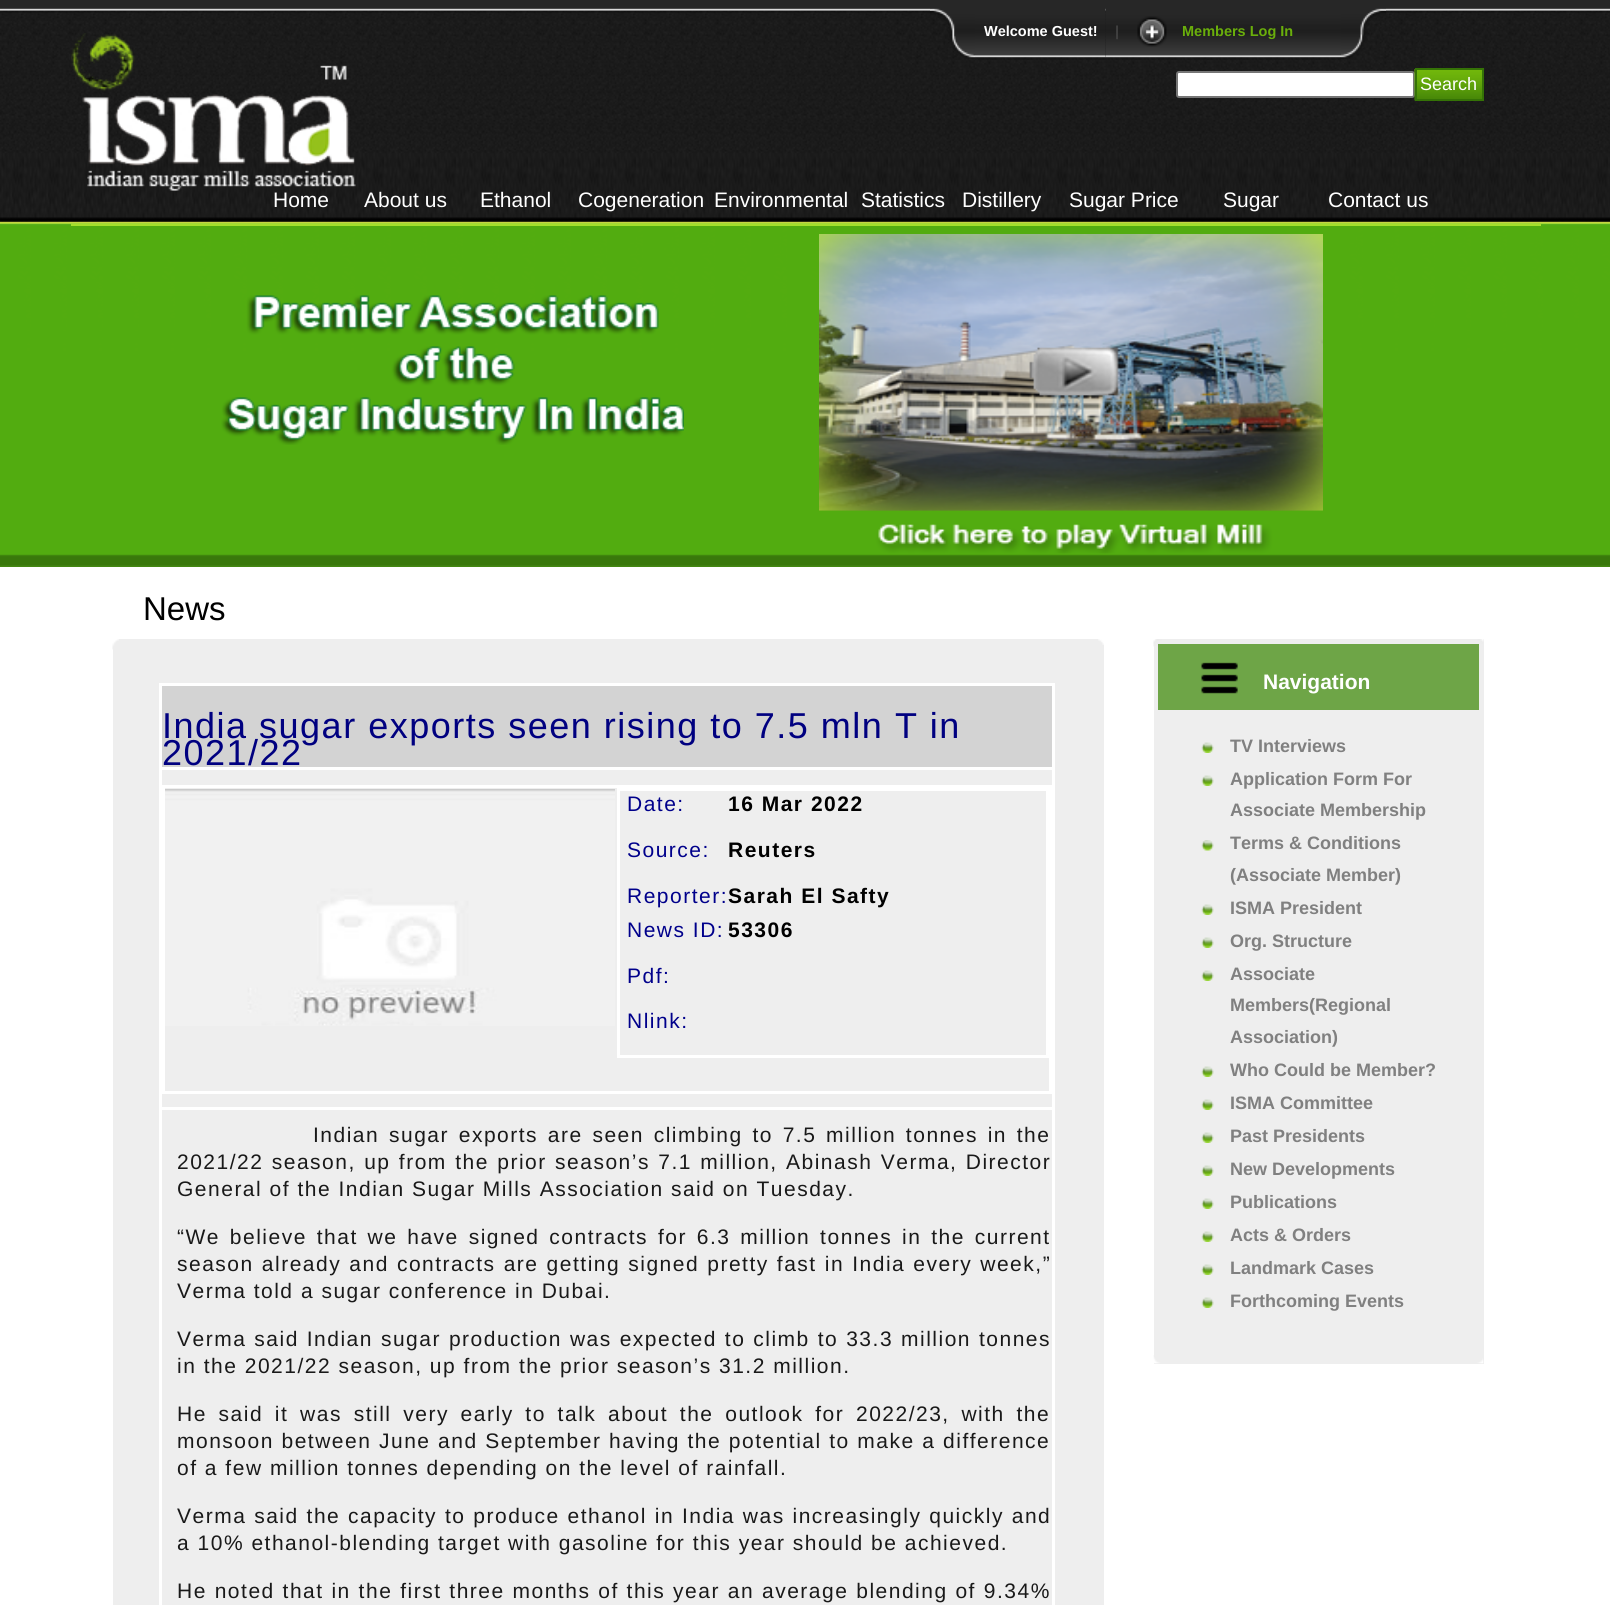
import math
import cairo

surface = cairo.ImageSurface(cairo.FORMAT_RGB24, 1610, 1605)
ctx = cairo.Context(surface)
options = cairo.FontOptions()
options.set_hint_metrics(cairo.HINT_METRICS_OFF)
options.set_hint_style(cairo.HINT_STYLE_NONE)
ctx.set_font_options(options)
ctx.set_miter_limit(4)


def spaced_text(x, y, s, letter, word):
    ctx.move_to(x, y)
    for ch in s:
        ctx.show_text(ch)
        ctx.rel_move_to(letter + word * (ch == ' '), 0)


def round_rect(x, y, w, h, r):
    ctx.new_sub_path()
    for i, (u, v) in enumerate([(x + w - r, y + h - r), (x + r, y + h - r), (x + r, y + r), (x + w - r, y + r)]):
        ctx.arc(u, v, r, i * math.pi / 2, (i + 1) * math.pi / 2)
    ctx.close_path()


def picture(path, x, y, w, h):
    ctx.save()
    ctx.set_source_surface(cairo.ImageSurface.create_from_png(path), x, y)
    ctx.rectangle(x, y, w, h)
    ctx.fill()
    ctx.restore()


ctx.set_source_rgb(1, 1, 1)
ctx.paint()
picture("img1.png", 0, 10, 1610, 557)
picture("img2.png", 0, 0, 1610, 13)
picture("img3.png", 930, 8, 45, 51)
picture("img4.png", 975, 8, 131, 52)
ctx.select_font_face("Liberation Sans", cairo.FONT_SLANT_NORMAL, cairo.FONT_WEIGHT_BOLD)
ctx.set_font_size(14.5)
ctx.set_source_rgb(1, 1, 1)
ctx.move_to(984, 36)
ctx.show_text("Welcome Guest!")
picture("img5.png", 1105, 8, 23, 52)
ctx.set_source_rgb(0.255, 0.255, 0.255)
ctx.move_to(1115, 36)
ctx.show_text("|")
picture("img6.png", 1128, 8, 213, 52)
picture("img7.png", 1137, 16, 30, 31)
ctx.set_source_rgb(0.416, 0.686, 0.043)
ctx.move_to(1182, 36)
ctx.show_text("Members Log In")
picture("img8.png", 1341, 8, 45, 51)
ctx.set_source_rgb(0.643, 0.875, 0.169)
ctx.rectangle(71, 224, 1470, 2)
ctx.fill()
picture("img9.png", 71, 33, 285, 158)
ctx.set_source_rgb(1, 1, 1)
round_rect(1177, 72, 237, 25, 2)
ctx.fill_preserve()
ctx.set_source_rgb(0.463, 0.463, 0.463)
ctx.stroke()
picture("img10.png", 1414, 69, 68, 32)
ctx.rectangle(1416, 69, 67, 31)
ctx.set_source_rgb(0.208, 0.451, 0.027)
ctx.stroke()
ctx.select_font_face("Liberation Sans")
ctx.set_font_size(18)
ctx.set_source_rgb(1, 1, 1)
ctx.move_to(1420, 90)
ctx.show_text("Search")
ctx.set_font_size(21)
ctx.move_to(273, 207)
ctx.show_text("Home")
ctx.move_to(364, 207)
ctx.show_text("About us")
ctx.move_to(480, 207)
ctx.show_text("Ethanol")
ctx.move_to(578, 207)
ctx.show_text("Cogeneration")
ctx.move_to(714, 207)
ctx.show_text("Environmental")
ctx.move_to(861, 207)
ctx.show_text("Statistics")
ctx.move_to(962, 207)
ctx.show_text("Distillery")
ctx.move_to(1069, 207)
ctx.show_text("Sugar Price")
ctx.move_to(1223, 207)
ctx.show_text("Sugar")
ctx.move_to(1328, 207)
ctx.show_text("Contact us")
picture("img11.png", 221, 295, 463, 150)
picture("img12.png", 819, 234, 504, 320)
ctx.set_font_size(33)
ctx.set_source_rgb(0, 0, 0)
ctx.move_to(143, 620)
ctx.show_text("News")
ctx.set_source_rgb(0.933, 0.933, 0.933)
ctx.rectangle(113, 639, 991, 966)
ctx.fill()
picture("img13.png", 112, 639, 7, 11)
picture("img14.png", 1098, 639, 6, 6)
ctx.set_source_rgb(0.827, 0.827, 0.827)
ctx.rectangle(162, 686, 890, 81)
ctx.fill()
ctx.set_source_rgb(1, 1, 1)
ctx.rectangle(159, 683, 896, 3)
ctx.fill()
ctx.rectangle(159, 1107, 896, 3)
ctx.fill()
ctx.rectangle(1052, 767, 3, 838)
ctx.fill()
ctx.rectangle(1052, 683, 3, 87)
ctx.fill()
ctx.rectangle(159, 767, 3, 838)
ctx.fill()
ctx.rectangle(159, 767, 896, 3)
ctx.fill()
ctx.rectangle(159, 683, 3, 87)
ctx.fill()
ctx.set_font_size(36)
ctx.set_source_rgb(0, 0, 0.502)
spaced_text(162, 738, "India sugar exports seen rising to 7.5 mln T in", 1.5, 0)
spaced_text(162, 765, "2021/22", 1.5, 0)
ctx.set_source_rgb(1, 1, 1)
ctx.rectangle(162, 785, 890, 3)
ctx.fill()
ctx.rectangle(1049, 785, 3, 309)
ctx.fill()
ctx.rectangle(162, 1091, 890, 3)
ctx.fill()
ctx.rectangle(162, 785, 3, 309)
ctx.fill()
picture("img15.png", 165, 789, 450, 237)
ctx.rectangle(617, 788, 432, 3)
ctx.fill()
ctx.rectangle(1046, 788, 3, 270)
ctx.fill()
ctx.rectangle(617, 1055, 432, 3)
ctx.fill()
ctx.rectangle(617, 788, 3, 270)
ctx.fill()
ctx.set_font_size(21)
ctx.set_source_rgb(0, 0, 0.545)
spaced_text(627, 811, "Date:", 1.5, 0)
ctx.select_font_face("Liberation Sans", cairo.FONT_SLANT_NORMAL, cairo.FONT_WEIGHT_BOLD)
ctx.set_source_rgb(0, 0, 0)
spaced_text(728, 811, "16 Mar 2022", 1.5, 0)
ctx.select_font_face("Liberation Sans")
ctx.set_source_rgb(0, 0, 0.545)
spaced_text(627, 857, "Source:", 1.5, 0)
ctx.select_font_face("Liberation Sans", cairo.FONT_SLANT_NORMAL, cairo.FONT_WEIGHT_BOLD)
ctx.set_source_rgb(0, 0, 0)
spaced_text(728, 857, "Reuters", 1.5, 0)
ctx.select_font_face("Liberation Sans")
ctx.set_source_rgb(0, 0, 0.545)
spaced_text(627, 903, "Reporter:", 1.5, 0)
ctx.select_font_face("Liberation Sans", cairo.FONT_SLANT_NORMAL, cairo.FONT_WEIGHT_BOLD)
ctx.set_source_rgb(0, 0, 0)
spaced_text(728, 903, "Sarah El Safty", 1.5, 0)
ctx.select_font_face("Liberation Sans")
ctx.set_source_rgb(0, 0, 0.545)
spaced_text(627, 937, "News ID:", 1.5, 0)
ctx.select_font_face("Liberation Sans", cairo.FONT_SLANT_NORMAL, cairo.FONT_WEIGHT_BOLD)
ctx.set_source_rgb(0, 0, 0)
spaced_text(728, 937, "53306", 1.5, 0)
ctx.select_font_face("Liberation Sans")
ctx.set_source_rgb(0, 0, 0.545)
spaced_text(627, 983, "Pdf:", 1.5, 0)
spaced_text(627, 1028, "Nlink:", 1.5, 0)
ctx.set_source_rgb(0.098, 0.098, 0.098)
spaced_text(313, 1142, "Indian sugar exports are seen climbing to 7.5 million tonnes in the", 1.5, 2.4)
spaced_text(177, 1169, "2021/22 season, up from the prior season’s 7.1 million, Abinash Verma, Director", 1.5, 1)
spaced_text(177, 1196, "General of the Indian Sugar Mills Association said on Tuesday.", 1.5, 0)
spaced_text(177, 1244, "“We believe that we have signed contracts for 6.3 million tonnes in the current", 1.5, 2.5)
spaced_text(177, 1271, "season already and contracts are getting signed pretty fast in India every week,”", 1.5, 0.75)
spaced_text(177, 1298, "Verma told a sugar conference in Dubai.", 1.5, 0)
spaced_text(177, 1346, "Verma said Indian sugar production was expected to climb to 33.3 million tonnes", 1.5, 0.6)
spaced_text(177, 1373, "in the 2021/22 season, up from the prior season’s 31.2 million.", 1.5, 0)
spaced_text(177, 1421, "He said it was still very early to talk about the outlook for 2022/23, with the", 1.5, 4.4)
spaced_text(177, 1448, "monsoon between June and September having the potential to make a difference", 1.5, 0.25)
spaced_text(177, 1475, "of a few million tonnes depending on the level of rainfall.", 1.5, 0)
spaced_text(177, 1523, "Verma said the capacity to produce ethanol in India was increasingly quickly and", 1.5, 0.5)
spaced_text(177, 1550, "a 10% ethanol-blending target with gasoline for this year should be achieved.", 1.5, 0)
spaced_text(177, 1598, "He noted that in the first three months of this year an average blending of 9.34%", 1.5, 0.5)
ctx.set_source_rgb(0.933, 0.933, 0.933)
ctx.rectangle(1154, 639, 330, 725)
ctx.fill()
picture("img16.png", 1153, 639, 331, 8)
ctx.set_source_rgb(0.431, 0.647, 0.278)
ctx.rectangle(1158, 644, 321, 66)
ctx.fill()
picture("img17.png", 1201, 662, 37, 32)
ctx.select_font_face("Liberation Sans", cairo.FONT_SLANT_NORMAL, cairo.FONT_WEIGHT_BOLD)
ctx.set_source_rgb(1, 1, 1)
ctx.move_to(1263, 689)
ctx.show_text("Navigation")
picture("img18.png", 1153, 1355, 331, 9)
picture("img19.png", 1201, 742, 13, 11)
ctx.set_font_size(18)
ctx.set_source_rgb(0.502, 0.502, 0.502)
ctx.move_to(1230, 752)
ctx.show_text("TV Interviews")
picture("img19.png", 1201, 775, 13, 11)
ctx.move_to(1230, 785)
ctx.show_text("Application Form For")
ctx.move_to(1230, 816)
ctx.show_text("Associate Membership")
picture("img20.png", 1201, 840, 13, 11)
ctx.move_to(1230, 849)
ctx.show_text("Terms & Conditions")
ctx.move_to(1230, 881)
ctx.show_text("(Associate Member)")
picture("img19.png", 1201, 904, 13, 11)
ctx.move_to(1230, 914)
ctx.show_text("ISMA President")
picture("img19.png", 1201, 937, 13, 11)
ctx.move_to(1230, 947)
ctx.show_text("Org. Structure")
picture("img19.png", 1201, 970, 13, 11)
ctx.move_to(1230, 980)
ctx.show_text("Associate")
ctx.move_to(1230, 1011)
ctx.show_text("Members(Regional")
ctx.move_to(1230, 1043)
ctx.show_text("Association)")
picture("img19.png", 1201, 1066, 13, 11)
ctx.move_to(1230, 1076)
ctx.show_text("Who Could be Member?")
picture("img19.png", 1201, 1099, 13, 11)
ctx.move_to(1230, 1109)
ctx.show_text("ISMA Committee")
picture("img19.png", 1201, 1132, 13, 11)
ctx.move_to(1230, 1142)
ctx.show_text("Past Presidents")
picture("img19.png", 1201, 1165, 13, 11)
ctx.move_to(1230, 1175)
ctx.show_text("New Developments")
picture("img19.png", 1201, 1198, 13, 11)
ctx.move_to(1230, 1208)
ctx.show_text("Publications")
picture("img19.png", 1201, 1231, 13, 11)
ctx.move_to(1230, 1241)
ctx.show_text("Acts & Orders")
picture("img19.png", 1201, 1264, 13, 11)
ctx.move_to(1230, 1274)
ctx.show_text("Landmark Cases")
picture("img19.png", 1201, 1297, 13, 11)
ctx.move_to(1230, 1307)
ctx.show_text("Forthcoming Events")
surface.write_to_png("page.png")
